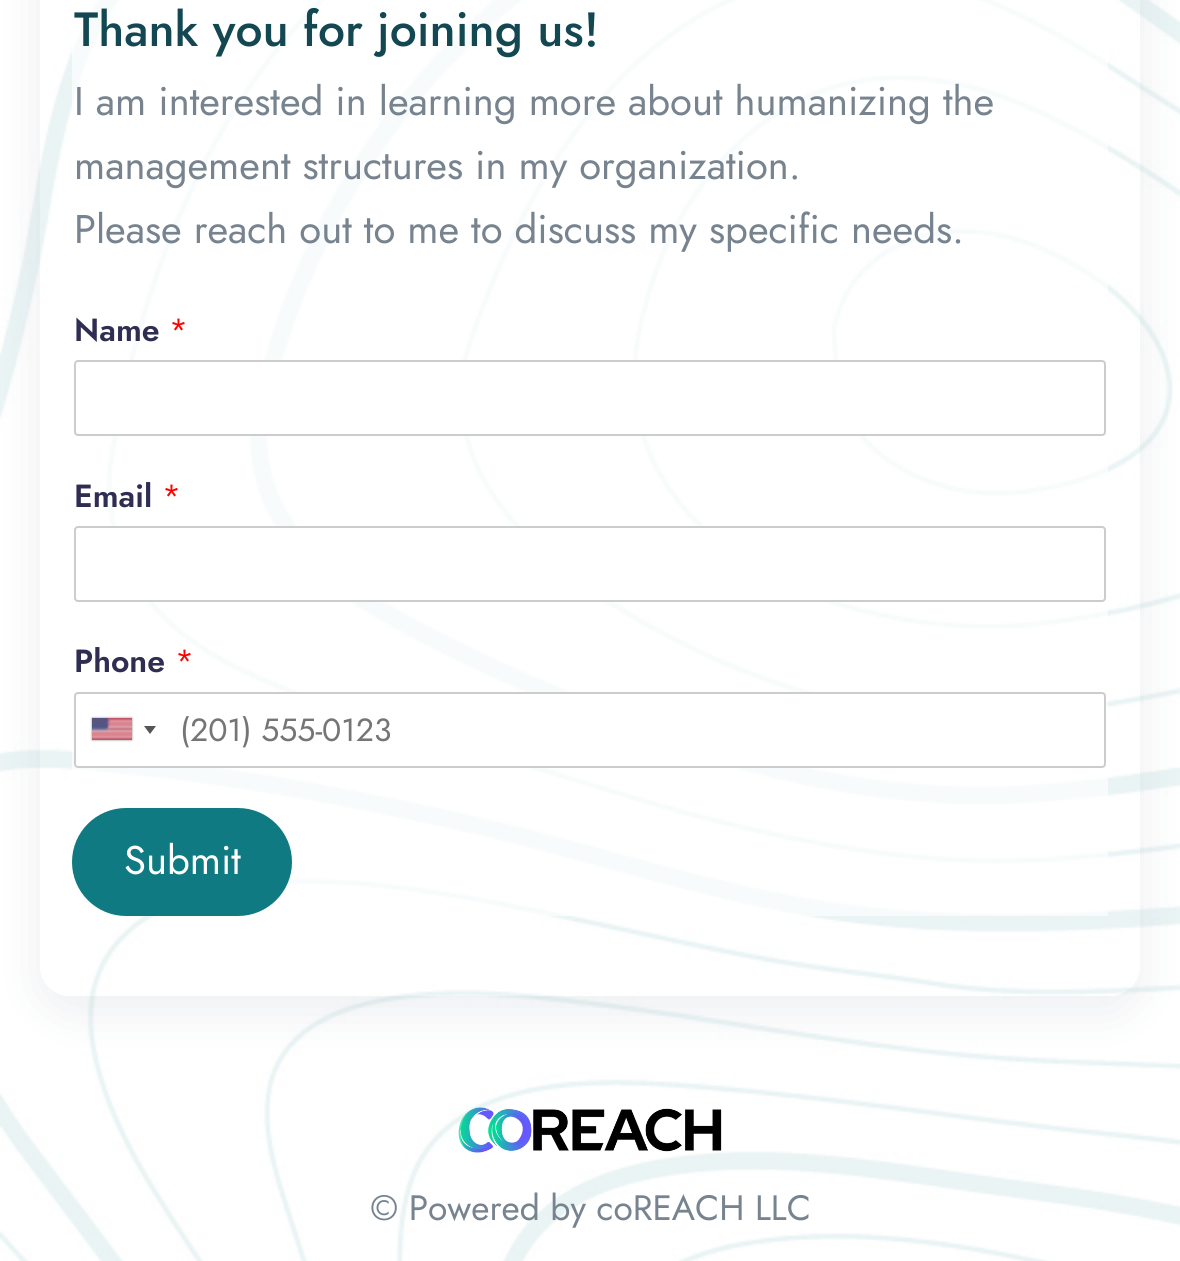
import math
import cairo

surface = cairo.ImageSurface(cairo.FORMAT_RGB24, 1180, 1261)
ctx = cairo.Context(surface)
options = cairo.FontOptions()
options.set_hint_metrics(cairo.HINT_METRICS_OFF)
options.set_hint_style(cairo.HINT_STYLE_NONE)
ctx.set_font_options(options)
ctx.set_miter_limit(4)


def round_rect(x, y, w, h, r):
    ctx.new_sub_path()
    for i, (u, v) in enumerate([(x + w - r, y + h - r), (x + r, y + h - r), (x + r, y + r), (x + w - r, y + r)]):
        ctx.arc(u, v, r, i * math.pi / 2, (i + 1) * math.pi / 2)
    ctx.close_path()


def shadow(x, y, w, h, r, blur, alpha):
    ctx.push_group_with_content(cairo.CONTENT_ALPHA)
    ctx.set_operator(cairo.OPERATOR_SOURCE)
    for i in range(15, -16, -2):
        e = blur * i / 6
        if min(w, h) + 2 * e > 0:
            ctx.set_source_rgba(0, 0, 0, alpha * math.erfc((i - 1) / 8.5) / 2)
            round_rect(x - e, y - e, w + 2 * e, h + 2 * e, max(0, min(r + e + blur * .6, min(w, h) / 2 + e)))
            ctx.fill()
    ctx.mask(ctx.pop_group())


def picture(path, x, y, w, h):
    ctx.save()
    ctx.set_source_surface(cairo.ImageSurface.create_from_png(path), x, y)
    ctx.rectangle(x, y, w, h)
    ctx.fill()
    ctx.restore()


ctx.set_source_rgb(1, 1, 1)
ctx.paint()
picture("img1.png", 0, 0, 1180, 1261)
ctx.save()
ctx.set_fill_rule(cairo.FILL_RULE_EVEN_ODD)
ctx.new_path()
ctx.move_to(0, 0)
ctx.line_to(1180, 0)
ctx.line_to(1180, 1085)
ctx.line_to(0, 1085)
ctx.close_path()
ctx.move_to(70, -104)
ctx.line_to(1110, -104)
ctx.curve_to(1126.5, -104, 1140, -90.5, 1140, -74)
ctx.line_to(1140, 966)
ctx.curve_to(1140, 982.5, 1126.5, 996, 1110, 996)
ctx.line_to(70, 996)
ctx.curve_to(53.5, 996, 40, 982.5, 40, 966)
ctx.line_to(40, -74)
ctx.curve_to(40, -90.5, 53.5, -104, 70, -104)
ctx.close_path()
ctx.clip()
ctx.set_source_rgb(0.549, 0.596, 0.643)
shadow(40, -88, 1100, 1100, 30, 24, 0.15)
ctx.restore()
ctx.set_source_rgba(1, 1, 1, 0.67)
ctx.rectangle(72, 0, 1036, 916)
ctx.fill()
ctx.select_font_face("Jost Medium")
ctx.set_font_size(48)
ctx.set_source_rgb(0.075, 0.282, 0.325)
ctx.move_to(74, 46)
ctx.show_text("Thank you for joining us!")
ctx.select_font_face("Jost")
ctx.set_font_size(40)
ctx.set_source_rgb(0.467, 0.514, 0.561)
ctx.move_to(74, 115)
ctx.show_text("I am interested in learning more about humanizing the")
ctx.move_to(74, 179)
ctx.show_text("management structures in my organization.")
ctx.move_to(74, 243)
ctx.show_text("Please reach out to me to discuss my specific needs.")
ctx.select_font_face("Jost SemiBold")
ctx.set_font_size(32)
ctx.set_source_rgb(0.184, 0.176, 0.318)
ctx.move_to(74, 341)
ctx.show_text("Name")
ctx.select_font_face("Jost")
ctx.set_source_rgb(1, 0, 0)
ctx.move_to(169, 341)
ctx.show_text("*")
ctx.set_source_rgb(1, 1, 1)
round_rect(75, 361, 1030, 74, 3)
ctx.fill_preserve()
ctx.set_source_rgb(0.8, 0.8, 0.8)
ctx.stroke()
ctx.select_font_face("Jost SemiBold")
ctx.set_source_rgb(0.184, 0.176, 0.318)
ctx.move_to(74, 507)
ctx.show_text("Email")
ctx.select_font_face("Jost")
ctx.set_source_rgb(1, 0, 0)
ctx.move_to(162, 507)
ctx.show_text("*")
ctx.set_source_rgb(1, 1, 1)
round_rect(75, 527, 1030, 74, 3)
ctx.fill_preserve()
ctx.set_source_rgb(0.8, 0.8, 0.8)
ctx.stroke()
ctx.select_font_face("Jost SemiBold")
ctx.set_source_rgb(0.184, 0.176, 0.318)
ctx.move_to(74, 672)
ctx.show_text("Phone")
ctx.select_font_face("Jost")
ctx.set_source_rgb(1, 0, 0)
ctx.move_to(175, 672)
ctx.show_text("*")
ctx.set_source_rgb(1, 1, 1)
round_rect(75, 693, 1030, 74, 3)
ctx.fill_preserve()
ctx.set_source_rgb(0.8, 0.8, 0.8)
ctx.stroke()
ctx.set_source_rgb(0.533, 0.533, 0.533)
shadow(92, 718, 40, 22, 0, 1, 1)
picture("img2.png", 92, 718, 40, 22)
ctx.set_source_rgb(0.333, 0.333, 0.333)
ctx.new_path()
ctx.move_to(144, 726)
ctx.line_to(156, 726)
ctx.line_to(150, 734)
ctx.close_path()
ctx.fill()
ctx.set_source_rgb(0.459, 0.459, 0.459)
ctx.move_to(180, 741)
ctx.show_text("(201) 555-0123")
ctx.set_source_rgb(0.063, 0.478, 0.514)
round_rect(73, 809, 218, 106, 53)
ctx.fill_preserve()
ctx.stroke()
ctx.set_font_size(40)
ctx.set_source_rgb(1, 1, 1)
ctx.move_to(124, 874)
ctx.show_text("Submit")
picture("img3.png", 458, 1107, 264, 46)
ctx.set_font_size(35.25)
ctx.set_source_rgb(0.467, 0.514, 0.561)
ctx.move_to(370, 1220)
ctx.show_text("© Powered by coREACH LLC")
surface.write_to_png("page.png")
